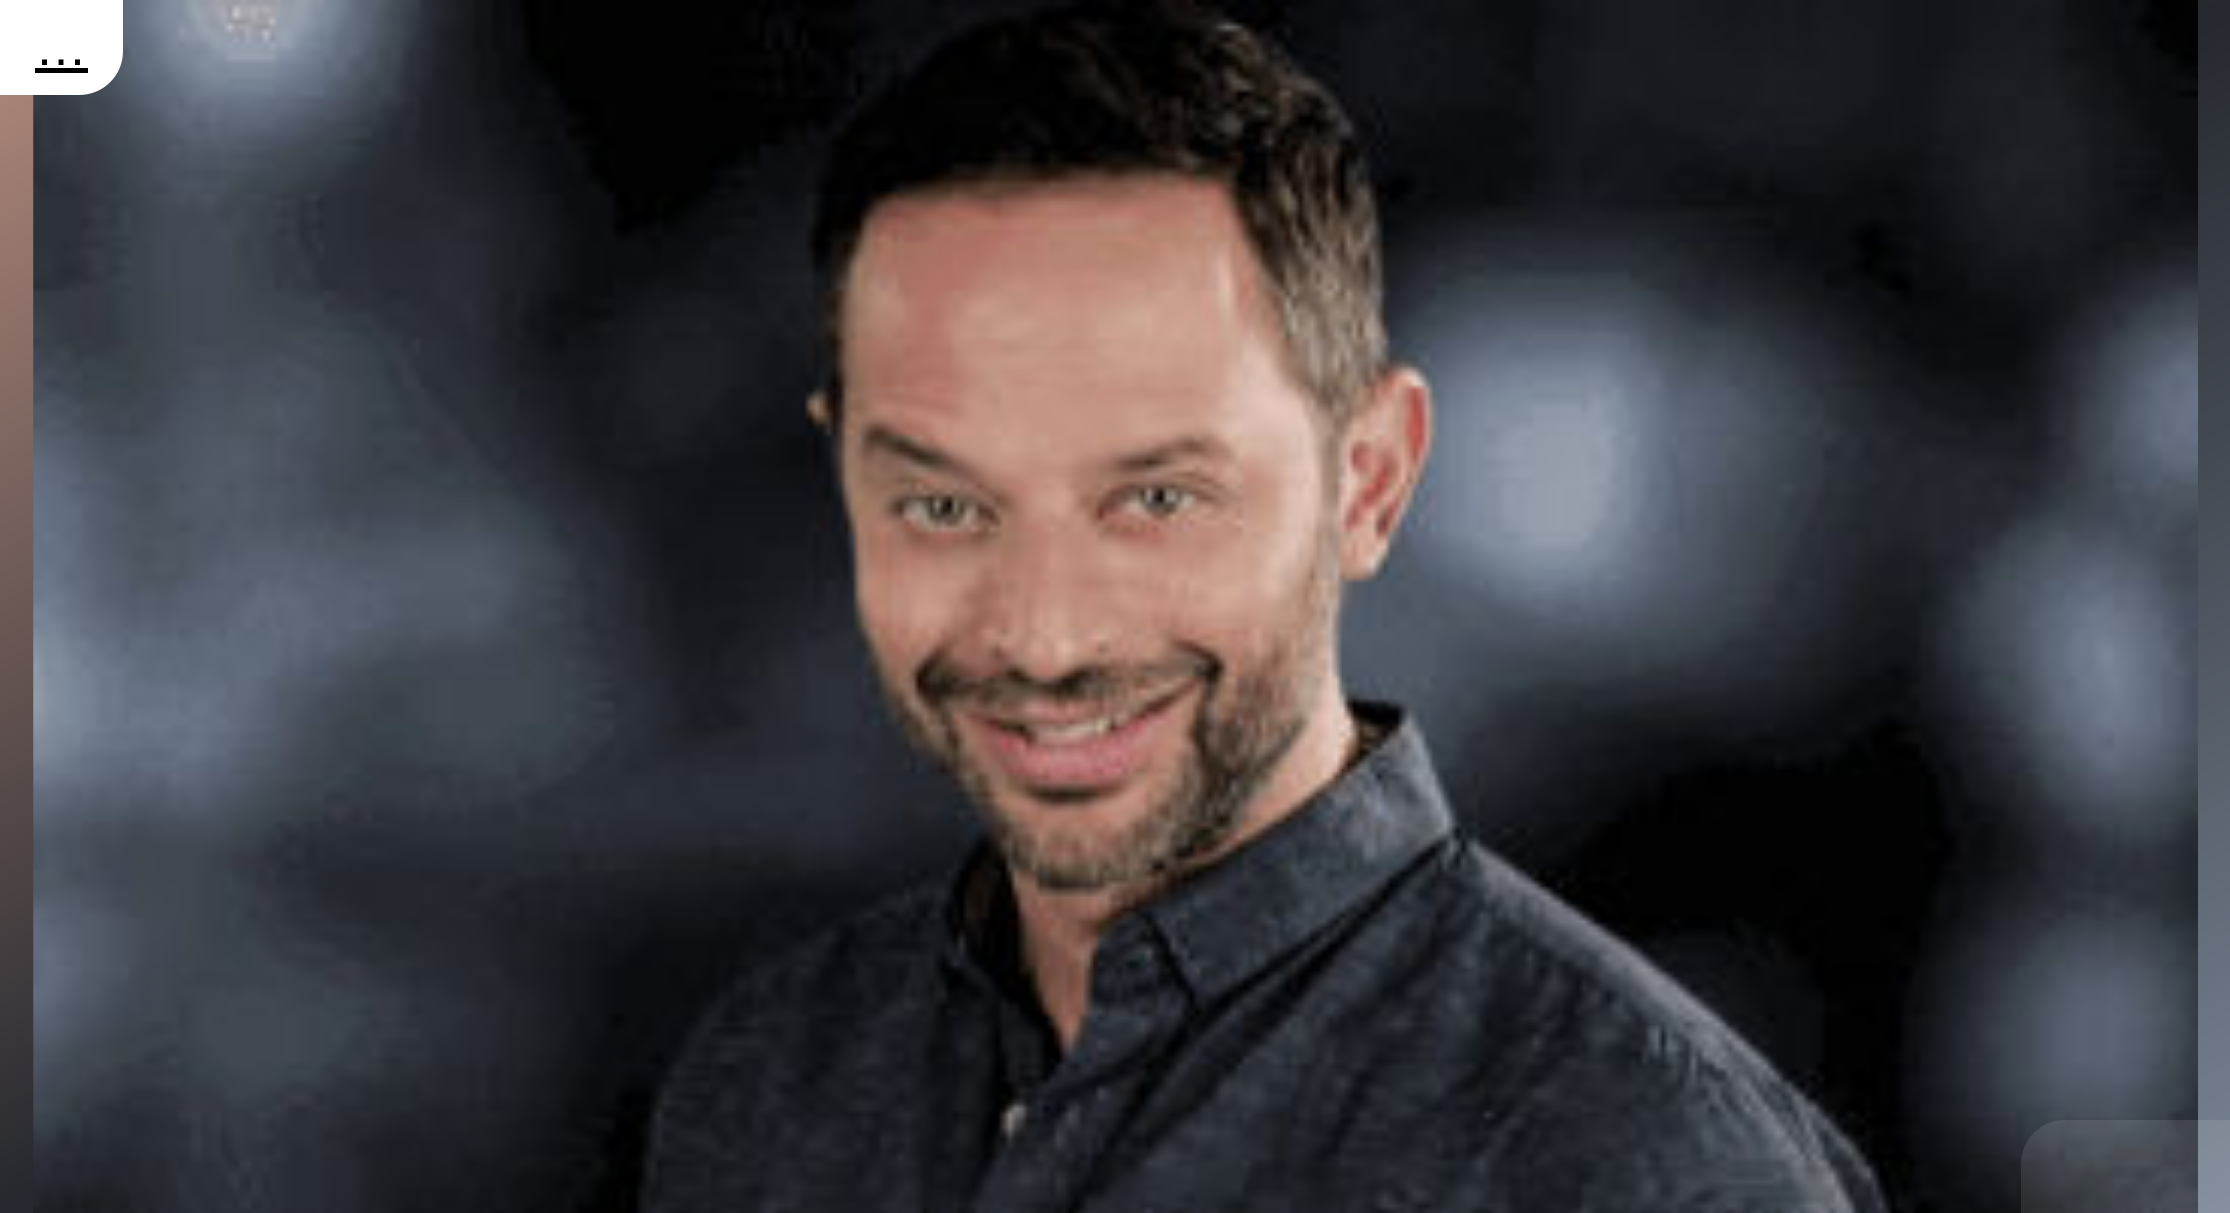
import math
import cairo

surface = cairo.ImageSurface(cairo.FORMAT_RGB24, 2230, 1213)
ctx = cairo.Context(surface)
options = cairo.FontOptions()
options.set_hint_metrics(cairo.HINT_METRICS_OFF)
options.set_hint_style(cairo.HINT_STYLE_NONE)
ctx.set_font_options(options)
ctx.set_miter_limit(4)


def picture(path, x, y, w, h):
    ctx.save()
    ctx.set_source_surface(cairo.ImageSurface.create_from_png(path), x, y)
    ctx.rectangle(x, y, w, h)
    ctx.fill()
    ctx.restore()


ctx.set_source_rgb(1, 1, 1)
ctx.paint()
gradient = cairo.LinearGradient(606, -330, 1626, 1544)
gradient.add_color_stop_rgba(0, 0.702, 0.541, 0.49, 1)
gradient.add_color_stop_rgba(0.5, 0.145, 0.157, 0.18, 1)
gradient.add_color_stop_rgba(1, 0.475, 0.518, 0.58, 1)
ctx.set_source(gradient)
ctx.rectangle(0, 0, 2230, 1213)
ctx.fill()
picture("img1.png", 33, 0, 2165, 1213)
ctx.set_source_rgb(1, 1, 1)
ctx.new_path()
ctx.move_to(0, 0)
ctx.line_to(123, 0)
ctx.line_to(123, 51)
ctx.curve_to(123, 75.5, 103.5, 95, 79, 95)
ctx.line_to(0, 95)
ctx.close_path()
ctx.fill()
ctx.select_font_face("Liberation Sans")
ctx.set_font_size(52)
ctx.set_source_rgb(0, 0, 0)
ctx.move_to(35, 65)
ctx.show_text("…")
ctx.rectangle(35, 68, 53, 5)
ctx.fill()
ctx.set_source_rgba(1, 1, 1, 0.1)
ctx.new_path()
ctx.move_to(2065, 1120)
ctx.line_to(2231, 1120)
ctx.line_to(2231, 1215)
ctx.line_to(2021, 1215)
ctx.line_to(2021, 1164)
ctx.curve_to(2021, 1139.5, 2040.5, 1120, 2065, 1120)
ctx.close_path()
ctx.fill()
surface.write_to_png("page.png")
